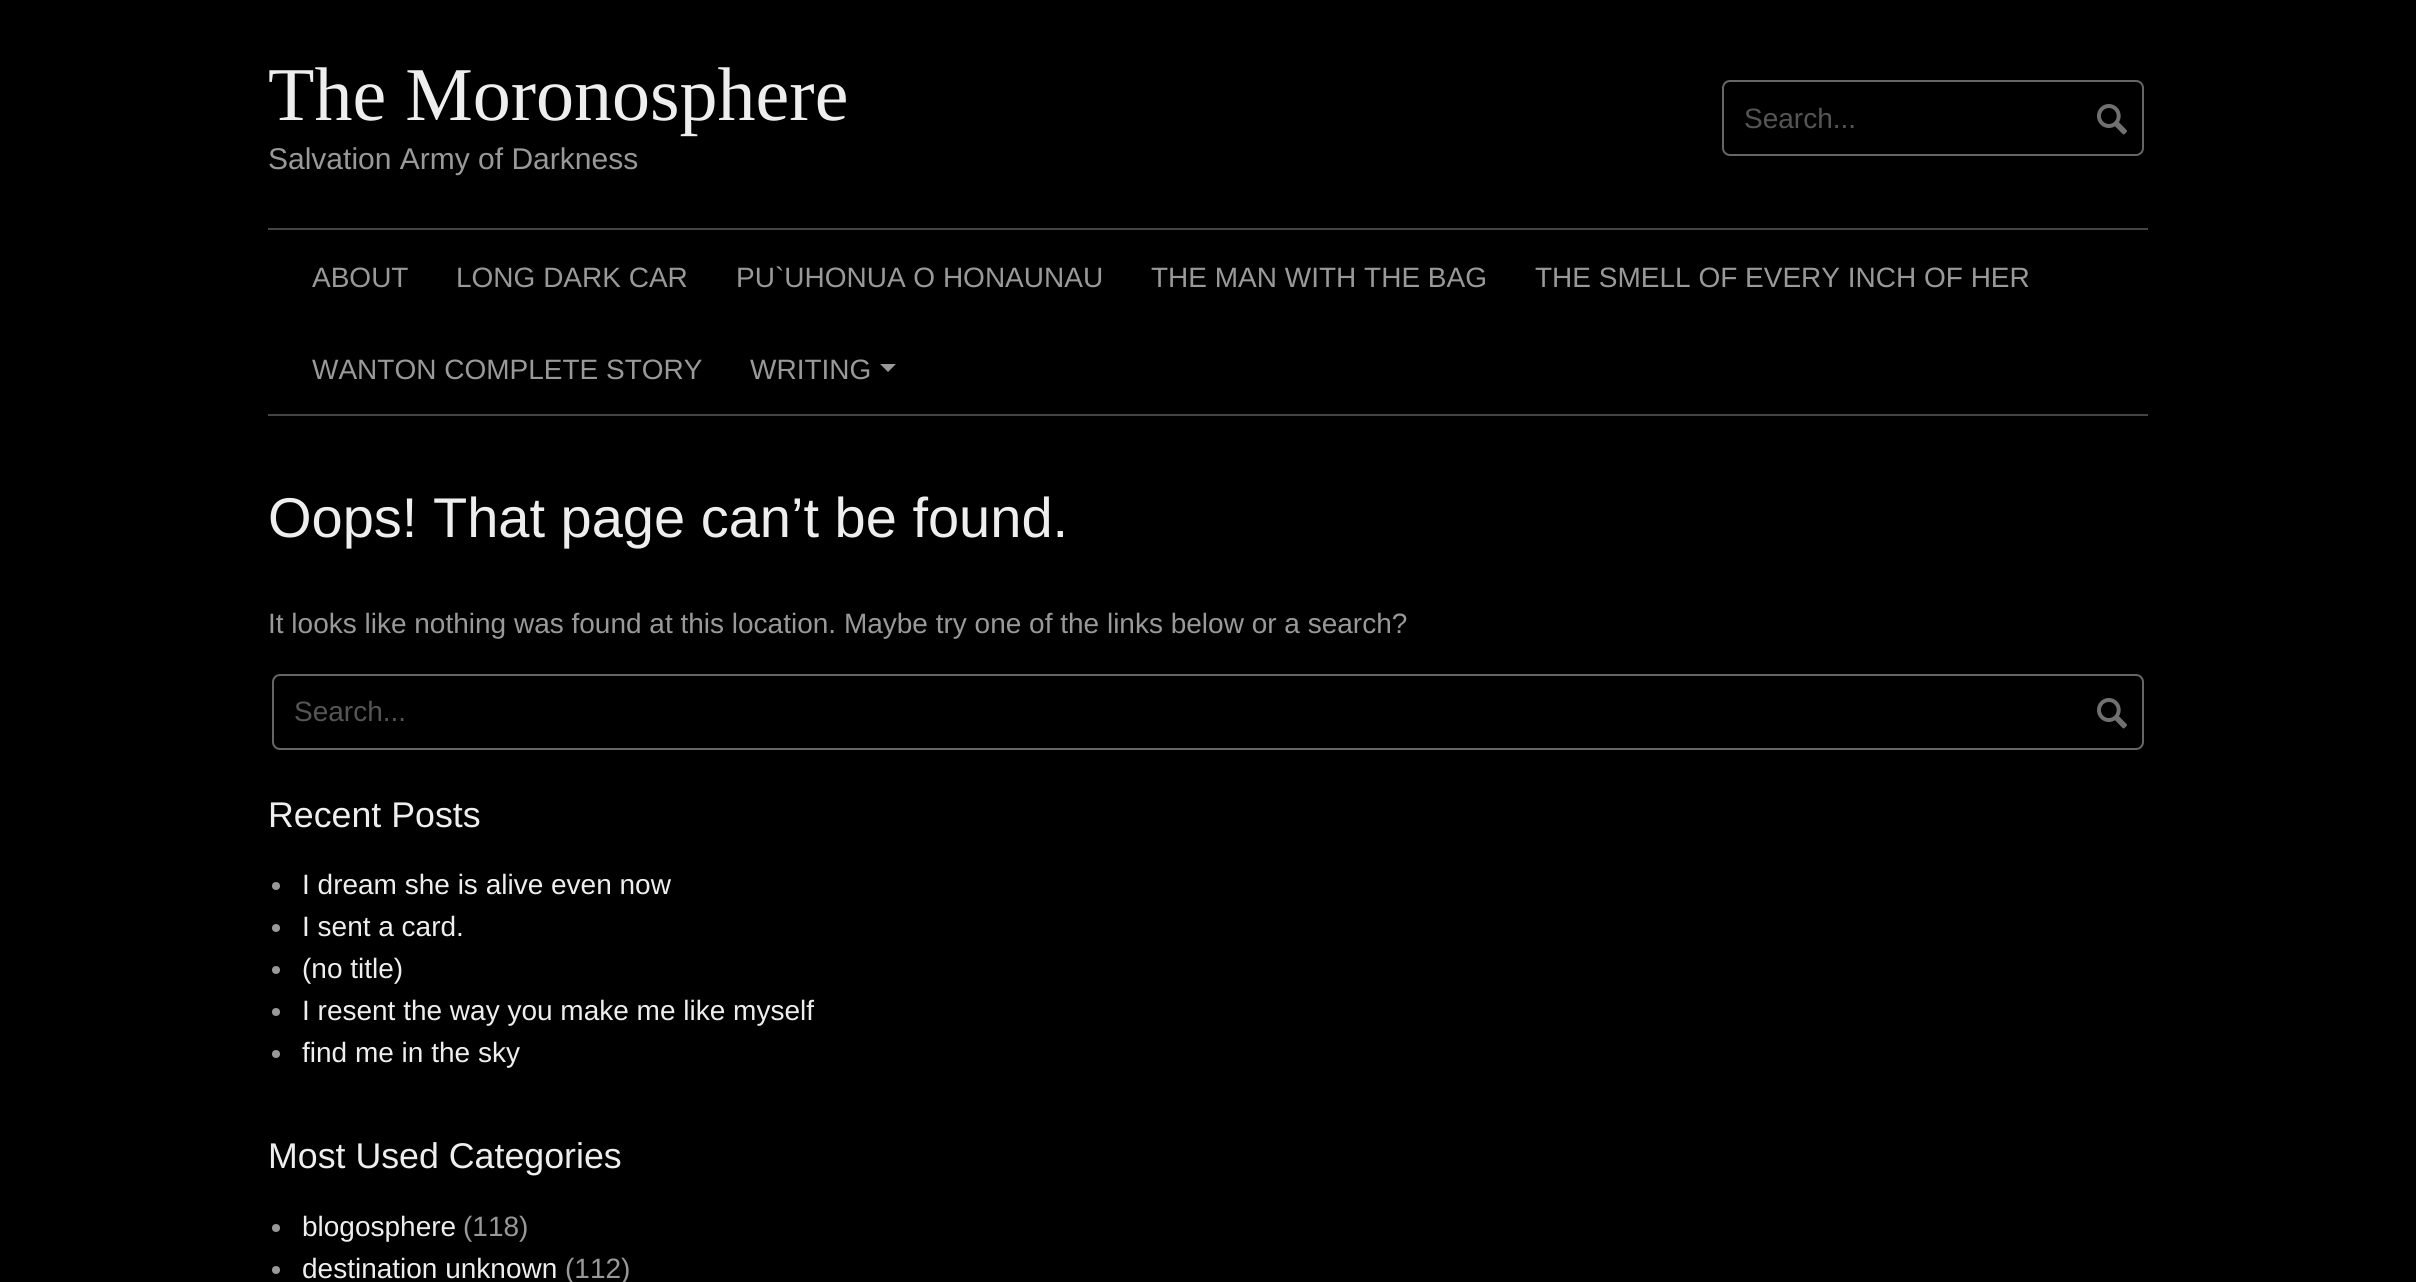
import math
import cairo

surface = cairo.ImageSurface(cairo.FORMAT_RGB24, 2416, 1282)
ctx = cairo.Context(surface)
options = cairo.FontOptions()
options.set_hint_metrics(cairo.HINT_METRICS_OFF)
options.set_hint_style(cairo.HINT_STYLE_NONE)
ctx.set_font_options(options)
ctx.set_miter_limit(4)


def round_rect(x, y, w, h, r):
    ctx.new_sub_path()
    for i, (u, v) in enumerate([(x + w - r, y + h - r), (x + r, y + h - r), (x + r, y + r), (x + w - r, y + r)]):
        ctx.arc(u, v, r, i * math.pi / 2, (i + 1) * math.pi / 2)
    ctx.close_path()


def picture(path, x, y, w, h):
    ctx.save()
    ctx.set_source_surface(cairo.ImageSurface.create_from_png(path), x, y)
    ctx.rectangle(x, y, w, h)
    ctx.fill()
    ctx.restore()


ctx.set_source_rgb(0, 0, 0)
ctx.paint()
ctx.select_font_face("Liberation Serif")
ctx.set_font_size(76)
ctx.set_source_rgb(0.933, 0.933, 0.933)
ctx.move_to(268, 120)
ctx.show_text("The Moronosphere")
ctx.select_font_face("Liberation Sans")
ctx.set_font_size(30)
ctx.set_source_rgb(0.6, 0.6, 0.6)
ctx.move_to(268, 169)
ctx.show_text("Salvation Army of Darkness")
round_rect(1723, 81, 420, 74, 7)
ctx.set_source_rgb(0.4, 0.4, 0.4)
ctx.stroke()
ctx.set_font_size(28)
ctx.set_source_rgb(0.333, 0.333, 0.333)
ctx.move_to(1744, 128)
ctx.show_text("Search...")
picture("img1.png", 2097, 104, 30, 31)
ctx.set_source_rgb(0.267, 0.267, 0.267)
ctx.rectangle(268, 228, 1880, 2)
ctx.fill()
ctx.rectangle(268, 414, 1880, 2)
ctx.fill()
ctx.set_source_rgb(0.6, 0.6, 0.6)
ctx.move_to(312, 287)
ctx.show_text("ABOUT")
ctx.move_to(456, 287)
ctx.show_text("LONG DARK CAR")
ctx.move_to(736, 287)
ctx.show_text("PU`UHONUA O HONAUNAU")
ctx.move_to(1151, 287)
ctx.show_text("THE MAN WITH THE BAG")
ctx.move_to(1535, 287)
ctx.show_text("THE SMELL OF EVERY INCH OF HER")
ctx.move_to(312, 379)
ctx.show_text("WANTON COMPLETE STORY")
ctx.move_to(750, 379)
ctx.show_text("WRITING")
ctx.new_path()
ctx.move_to(880, 364)
ctx.line_to(896, 364)
ctx.line_to(888, 372)
ctx.close_path()
ctx.fill()
ctx.set_font_size(56)
ctx.set_source_rgb(0.933, 0.933, 0.933)
ctx.move_to(268, 537)
ctx.show_text("Oops! That page can’t be found.")
ctx.set_font_size(28)
ctx.set_source_rgb(0.6, 0.6, 0.6)
ctx.move_to(268, 633)
ctx.show_text("It looks like nothing was found at this location. Maybe try one of the links below or a search?")
round_rect(273, 675, 1870, 74, 7)
ctx.set_source_rgb(0.4, 0.4, 0.4)
ctx.stroke()
ctx.set_source_rgb(0.333, 0.333, 0.333)
ctx.move_to(294, 721)
ctx.show_text("Search...")
picture("img1.png", 2097, 698, 30, 31)
ctx.set_font_size(35.75)
ctx.set_source_rgb(0.933, 0.933, 0.933)
ctx.move_to(268, 827)
ctx.show_text("Recent Posts")
ctx.set_source_rgb(0.6, 0.6, 0.6)
ctx.new_path()
ctx.arc(276, 886, 4, 0, 2 * math.pi)
ctx.fill()
ctx.set_font_size(28)
ctx.set_source_rgb(0.933, 0.933, 0.933)
ctx.move_to(302, 894)
ctx.show_text("I dream she is alive even now")
ctx.set_source_rgb(0.6, 0.6, 0.6)
ctx.new_path()
ctx.arc(276, 928, 4, 0, 2 * math.pi)
ctx.fill()
ctx.set_source_rgb(0.933, 0.933, 0.933)
ctx.move_to(302, 936)
ctx.show_text("I sent a card.")
ctx.set_source_rgb(0.6, 0.6, 0.6)
ctx.new_path()
ctx.arc(276, 970, 4, 0, 2 * math.pi)
ctx.fill()
ctx.set_source_rgb(0.933, 0.933, 0.933)
ctx.move_to(302, 978)
ctx.show_text("(no title)")
ctx.set_source_rgb(0.6, 0.6, 0.6)
ctx.new_path()
ctx.arc(276, 1012, 4, 0, 2 * math.pi)
ctx.fill()
ctx.set_source_rgb(0.933, 0.933, 0.933)
ctx.move_to(302, 1020)
ctx.show_text("I resent the way you make me like myself")
ctx.set_source_rgb(0.6, 0.6, 0.6)
ctx.new_path()
ctx.arc(276, 1054, 4, 0, 2 * math.pi)
ctx.fill()
ctx.set_source_rgb(0.933, 0.933, 0.933)
ctx.move_to(302, 1062)
ctx.show_text("find me in the sky")
ctx.set_font_size(35.75)
ctx.move_to(268, 1168)
ctx.show_text("Most Used Categories")
ctx.set_source_rgb(0.6, 0.6, 0.6)
ctx.new_path()
ctx.arc(276, 1228, 4, 0, 2 * math.pi)
ctx.fill()
ctx.set_font_size(28)
ctx.set_source_rgb(0.933, 0.933, 0.933)
ctx.move_to(302, 1236)
ctx.show_text("blogosphere")
ctx.set_source_rgb(0.6, 0.6, 0.6)
ctx.move_to(463, 1236)
ctx.show_text("(118)")
ctx.new_path()
ctx.arc(276, 1270, 4, 0, 2 * math.pi)
ctx.fill()
ctx.set_source_rgb(0.933, 0.933, 0.933)
ctx.move_to(302, 1278)
ctx.show_text("destination unknown")
ctx.set_source_rgb(0.6, 0.6, 0.6)
ctx.move_to(565, 1278)
ctx.show_text("(112)")
surface.write_to_png("page.png")
